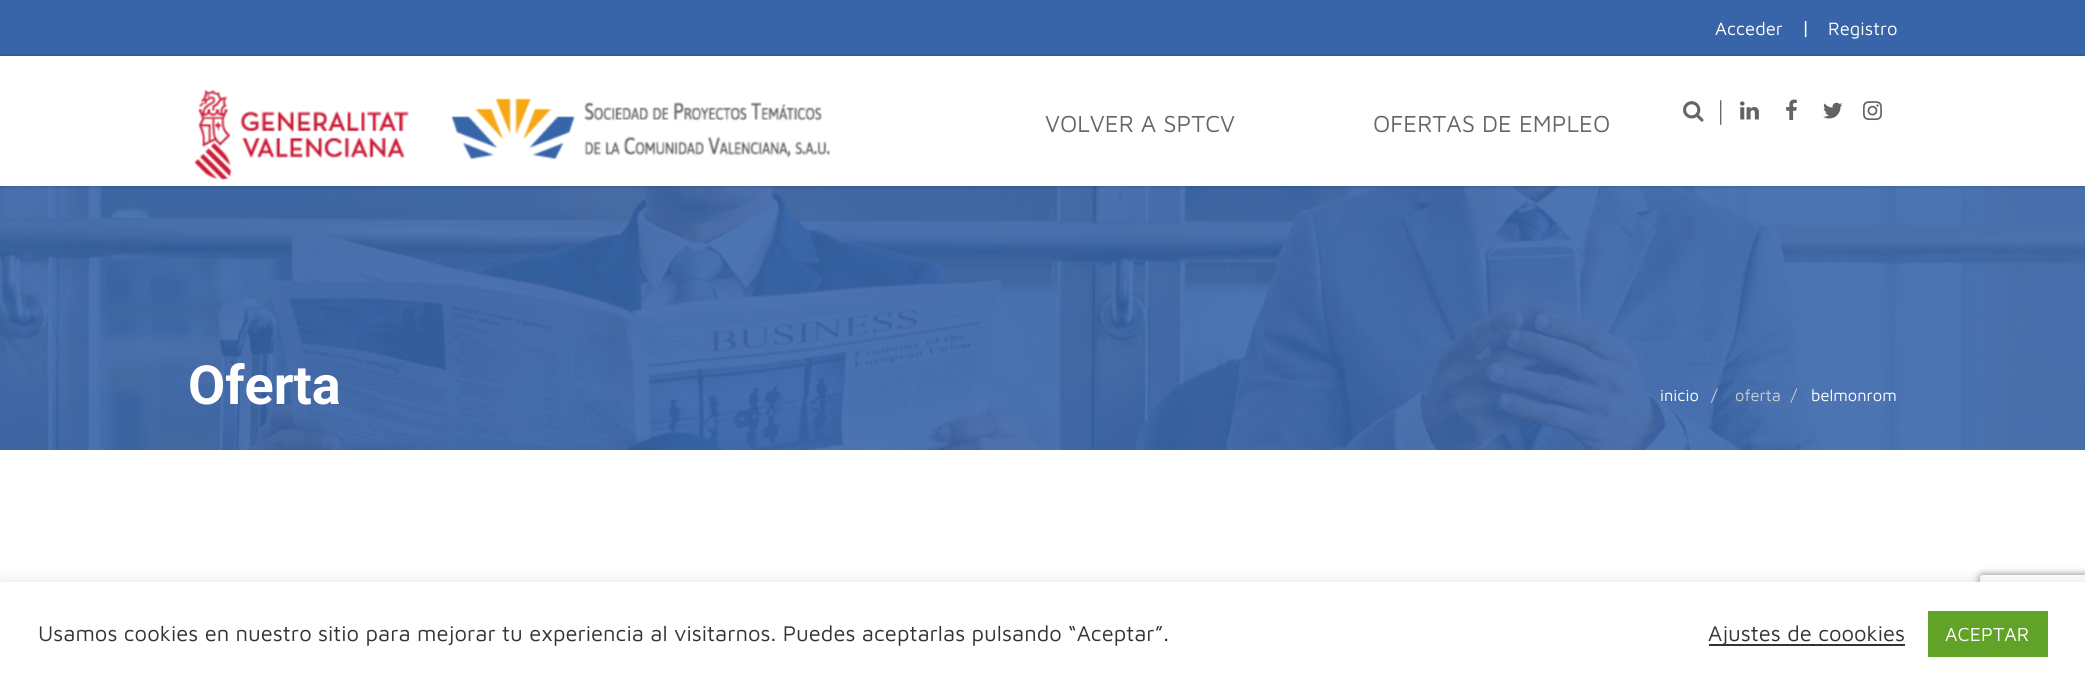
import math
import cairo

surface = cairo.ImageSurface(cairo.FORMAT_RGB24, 2085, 685)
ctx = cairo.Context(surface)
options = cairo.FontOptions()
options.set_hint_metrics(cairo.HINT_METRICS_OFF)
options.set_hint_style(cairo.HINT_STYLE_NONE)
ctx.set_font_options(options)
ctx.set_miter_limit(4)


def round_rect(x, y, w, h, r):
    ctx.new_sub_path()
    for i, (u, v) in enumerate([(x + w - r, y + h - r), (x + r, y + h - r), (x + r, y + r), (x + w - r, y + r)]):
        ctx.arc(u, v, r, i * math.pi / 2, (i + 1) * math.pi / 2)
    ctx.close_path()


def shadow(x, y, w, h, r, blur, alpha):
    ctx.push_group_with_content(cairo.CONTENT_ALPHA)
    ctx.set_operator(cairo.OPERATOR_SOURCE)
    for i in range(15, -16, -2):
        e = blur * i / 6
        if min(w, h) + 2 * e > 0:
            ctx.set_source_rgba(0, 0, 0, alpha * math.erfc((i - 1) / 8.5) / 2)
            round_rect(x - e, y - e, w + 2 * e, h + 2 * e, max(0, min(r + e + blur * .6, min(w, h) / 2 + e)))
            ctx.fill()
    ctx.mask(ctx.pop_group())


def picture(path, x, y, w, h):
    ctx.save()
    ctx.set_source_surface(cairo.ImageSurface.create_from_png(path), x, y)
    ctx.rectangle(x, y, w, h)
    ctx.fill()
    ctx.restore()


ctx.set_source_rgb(1, 1, 1)
ctx.paint()
ctx.set_source_rgb(0.22, 0.396, 0.667)
ctx.rectangle(0, 0, 2085, 54)
ctx.fill()
ctx.set_source_rgb(0.196, 0.357, 0.6)
ctx.rectangle(0, 54, 2085, 2)
ctx.fill()
ctx.select_font_face("Maven Pro")
ctx.set_font_size(18.5)
ctx.set_source_rgb(1, 1, 1)
ctx.move_to(1715, 35)
ctx.show_text("Acceder")
ctx.set_font_size(21)
ctx.move_to(1801, 35)
ctx.show_text("|")
ctx.set_font_size(18.5)
ctx.move_to(1828, 35)
ctx.show_text("Registro")
picture("img7.png", 0, 186, 2085, 264)
ctx.save()
ctx.rectangle(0, 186, 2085, 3)
ctx.clip()
ctx.set_source_rgb(0, 0, 0)
shadow(0, 57, 2085, 131, 0, 1, 0.1)
ctx.restore()
picture("img1.png", 194, 89, 636, 92)
ctx.set_font_size(24)
ctx.set_source_rgb(0.4, 0.4, 0.4)
ctx.move_to(1045, 132)
ctx.show_text("VOLVER A SPTCV")
ctx.move_to(1373, 132)
ctx.show_text("OFERTAS DE EMPLEO")
picture("img2.png", 1683, 101, 21, 21)
ctx.select_font_face("Liberation Serif")
ctx.set_font_size(27)
ctx.move_to(1718, 119)
ctx.show_text("|")
picture("img3.png", 1740, 101, 19, 19)
picture("img4.png", 1786, 99, 11, 22)
picture("img5.png", 1823, 102, 20, 17)
picture("img6.png", 1863, 101, 19, 20)
ctx.select_font_face("Roboto", cairo.FONT_SLANT_NORMAL, cairo.FONT_WEIGHT_BOLD)
ctx.set_font_size(54)
ctx.set_source_rgb(1, 1, 1)
ctx.move_to(188, 404)
ctx.show_text("Oferta")
ctx.select_font_face("Maven Pro")
ctx.set_font_size(16.5)
ctx.move_to(1660, 401)
ctx.show_text("inicio")
ctx.set_source_rgb(0.8, 0.8, 0.8)
ctx.move_to(1711, 401)
ctx.show_text("/")
ctx.move_to(1735, 401)
ctx.show_text("oferta  /")
ctx.set_source_rgb(1, 1, 1)
ctx.move_to(1811, 401)
ctx.show_text("belmonrom")
ctx.save()
ctx.set_fill_rule(cairo.FILL_RULE_EVEN_ODD)
ctx.new_path()
ctx.move_to(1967, 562)
ctx.line_to(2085, 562)
ctx.line_to(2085, 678)
ctx.line_to(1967, 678)
ctx.close_path()
ctx.move_to(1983, 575)
ctx.line_to(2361, 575)
ctx.curve_to(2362.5, 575, 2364, 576.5, 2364, 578)
ctx.line_to(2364, 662)
ctx.curve_to(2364, 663.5, 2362.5, 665, 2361, 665)
ctx.line_to(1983, 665)
ctx.curve_to(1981.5, 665, 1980, 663.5, 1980, 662)
ctx.line_to(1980, 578)
ctx.curve_to(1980, 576.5, 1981.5, 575, 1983, 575)
ctx.close_path()
ctx.clip()
ctx.set_source_rgb(0.502, 0.502, 0.502)
shadow(1980, 575, 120, 90, 3, 4, 1)
ctx.restore()
ctx.set_source_rgb(0.675, 0.671, 0.671)
shadow(0, 581, 2085, 103, 0, 7.5, 0.3)
ctx.set_source_rgb(1, 1, 1)
ctx.rectangle(0, 582, 2085, 103)
ctx.fill()
ctx.set_font_size(22)
ctx.set_source_rgb(0.2, 0.2, 0.2)
ctx.move_to(38, 641)
ctx.show_text("Usamos cookies en nuestro sitio para mejorar tu experiencia al visitarnos. Puedes aceptarlas pulsando “Aceptar”.")
ctx.rectangle(1709, 644, 196, 2)
ctx.fill()
ctx.move_to(1708, 641)
ctx.show_text("Ajustes de coookies")
ctx.set_source_rgb(0.38, 0.635, 0.161)
ctx.rectangle(1928, 611, 120, 46)
ctx.fill()
ctx.set_font_size(19.5)
ctx.set_source_rgb(1, 1, 1)
ctx.move_to(1945, 641)
ctx.show_text("ACEPTAR")
surface.write_to_png("page.png")
